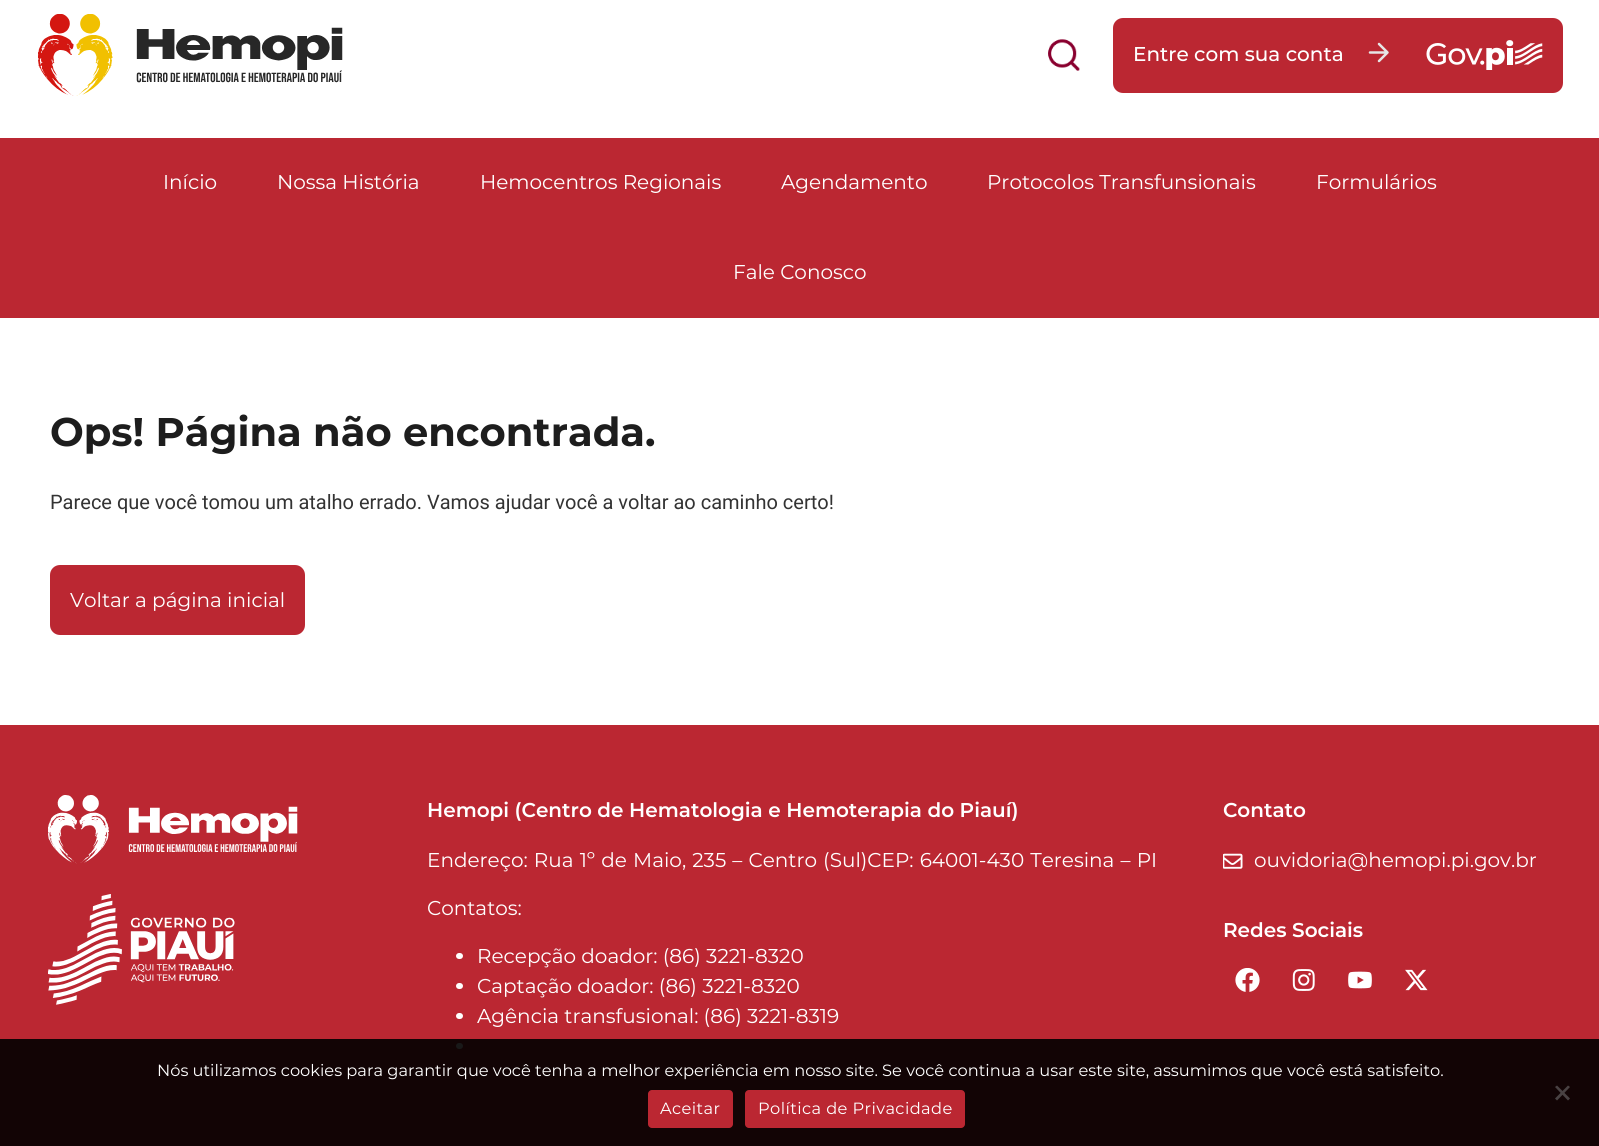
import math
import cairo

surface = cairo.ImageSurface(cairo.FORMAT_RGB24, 1599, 1146)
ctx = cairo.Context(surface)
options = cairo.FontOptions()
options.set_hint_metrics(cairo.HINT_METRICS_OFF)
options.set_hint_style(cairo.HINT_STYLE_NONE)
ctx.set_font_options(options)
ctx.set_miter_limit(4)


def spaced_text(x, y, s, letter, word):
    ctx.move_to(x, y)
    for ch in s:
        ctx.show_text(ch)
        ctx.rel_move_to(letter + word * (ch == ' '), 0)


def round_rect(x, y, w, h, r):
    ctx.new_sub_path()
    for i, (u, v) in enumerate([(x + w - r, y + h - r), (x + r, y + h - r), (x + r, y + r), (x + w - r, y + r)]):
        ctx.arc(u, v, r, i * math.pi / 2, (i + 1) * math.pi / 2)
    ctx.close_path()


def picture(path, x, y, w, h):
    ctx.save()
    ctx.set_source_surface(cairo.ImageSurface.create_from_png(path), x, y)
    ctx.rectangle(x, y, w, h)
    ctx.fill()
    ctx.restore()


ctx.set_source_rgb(1, 1, 1)
ctx.paint()
picture("img1.png", 38, 14, 305, 82)
picture("img2.png", 1048, 39, 32, 32)
ctx.set_source_rgb(0.733, 0.153, 0.196)
round_rect(1113, 18, 450, 75, 10)
ctx.fill()
ctx.select_font_face("Montserrat Medium")
ctx.set_font_size(20)
ctx.set_source_rgb(1, 1, 1)
ctx.move_to(1133, 61)
ctx.show_text("Entre com sua conta")
ctx.new_path()
ctx.move_to(1370, 52.5)
ctx.line_to(1387.5, 52.5)
ctx.move_to(1387.5, 52.5)
ctx.line_to(1379, 44)
ctx.move_to(1387.5, 52.5)
ctx.line_to(1379, 61)
ctx.set_source_rgb(0.902, 0.902, 0.902)
ctx.set_line_width(2.5)
ctx.set_line_cap(cairo.LINE_CAP_ROUND)
ctx.set_line_join(cairo.LINE_JOIN_ROUND)
ctx.stroke()
picture("img3.png", 1426, 40, 117, 30)
ctx.set_source_rgb(0.733, 0.153, 0.196)
ctx.rectangle(0, 138, 1599, 180)
ctx.fill()
ctx.select_font_face("Montserrat")
ctx.set_source_rgb(1, 1, 1)
ctx.move_to(163, 189)
ctx.show_text("Início")
ctx.move_to(277, 189)
ctx.show_text("Nossa História")
ctx.move_to(480, 189)
ctx.show_text("Hemocentros Regionais")
ctx.move_to(781, 189)
ctx.show_text("Agendamento")
ctx.move_to(987, 189)
ctx.show_text("Protocolos Transfunsionais")
ctx.move_to(1316, 189)
ctx.show_text("Formulários")
ctx.move_to(733, 279)
ctx.show_text("Fale Conosco")
ctx.select_font_face("Montserrat", cairo.FONT_SLANT_NORMAL, cairo.FONT_WEIGHT_BOLD)
ctx.set_font_size(40)
ctx.set_source_rgb(0.114, 0.114, 0.114)
ctx.move_to(50, 446)
ctx.show_text("Ops! Página não encontrada.")
ctx.select_font_face("Roboto")
ctx.set_font_size(20)
ctx.set_source_rgb(0.2, 0.2, 0.2)
ctx.move_to(50, 509)
ctx.show_text("Parece que você tomou um atalho errado. Vamos ajudar você a voltar ao caminho certo!")
ctx.set_source_rgb(0.733, 0.153, 0.196)
round_rect(50, 565, 255, 70, 10)
ctx.fill()
ctx.select_font_face("Montserrat")
ctx.set_source_rgb(1, 1, 1)
ctx.move_to(70, 607)
ctx.show_text("Voltar a página inicial")
ctx.set_source_rgb(0.733, 0.153, 0.196)
ctx.rectangle(0, 725, 1599, 421)
ctx.fill()
picture("img4.png", 48, 795, 250, 69)
picture("img5.png", 48, 894, 187, 111)
ctx.select_font_face("Montserrat SemiBold")
ctx.set_source_rgb(1, 1, 1)
ctx.move_to(427, 817)
ctx.show_text("Hemopi (Centro de Hematologia e Hemoterapia do Piauí)")
ctx.select_font_face("Montserrat")
spaced_text(427, 867, "Endereço: Rua 1º de Maio, 235 – Centro (Sul)CEP: 64001-430 Teresina – PI", 0, 0.9)
ctx.move_to(427, 915)
ctx.show_text("Contatos:")
round_rect(456, 953, 7, 6, 3)
ctx.fill()
ctx.move_to(477, 963)
ctx.show_text("Recepção doador: (86) 3221-8320")
round_rect(456, 983, 7, 6, 3)
ctx.fill()
ctx.move_to(477, 993)
ctx.show_text("Captação doador: (86) 3221-8320")
round_rect(456, 1013, 7, 6, 3)
ctx.fill()
ctx.move_to(477, 1023)
ctx.show_text("Agência transfusional: (86) 3221-8319")
round_rect(456, 1043, 7, 6, 3)
ctx.fill()
ctx.select_font_face("Montserrat SemiBold")
ctx.move_to(1223, 817)
ctx.show_text("Contato")
picture("img6.png", 1223, 853, 20, 16)
ctx.select_font_face("Montserrat")
ctx.move_to(1254, 867)
ctx.show_text("ouvidoria@hemopi.pi.gov.br")
ctx.select_font_face("Montserrat SemiBold")
ctx.move_to(1223, 937)
ctx.show_text("Redes Sociais")
picture("img7.png", 1235, 968, 25, 24)
picture("img8.png", 1292, 969, 23, 22)
picture("img9.png", 1348, 971, 24, 18)
picture("img10.png", 1405, 969, 23, 22)
ctx.set_source_rgba(0, 0, 0, 0.9)
ctx.rectangle(0, 1039, 1599, 107)
ctx.fill()
ctx.select_font_face("Montserrat")
ctx.set_font_size(16.25)
ctx.set_source_rgb(1, 1, 1)
ctx.move_to(157, 1076)
ctx.show_text("Nós utilizamos cookies para garantir que você tenha a melhor experiência em nosso site. Se você continua a usar este site, assumimos que você está satisfeito.")
ctx.set_source_rgb(0.286, 0.259, 0.263)
ctx.new_path()
ctx.move_to(1568, 1085.5)
ctx.line_to(1570, 1087)
ctx.line_to(1557, 1100.5)
ctx.line_to(1555, 1098.5)
ctx.close_path()
ctx.fill()
ctx.new_path()
ctx.move_to(1555, 1087)
ctx.line_to(1557, 1085.5)
ctx.line_to(1570, 1098.5)
ctx.line_to(1568, 1100.5)
ctx.close_path()
ctx.fill()
ctx.set_source_rgb(0.733, 0.153, 0.196)
round_rect(648, 1090, 85, 38, 4)
ctx.fill()
ctx.set_source_rgb(1, 1, 1)
spaced_text(660, 1114, "Aceitar", 0.4, 0)
ctx.set_source_rgb(0.733, 0.153, 0.196)
round_rect(745, 1090, 220, 38, 4)
ctx.fill()
ctx.set_source_rgb(1, 1, 1)
spaced_text(758, 1114, "Política de Privacidade", 0.4, 0)
surface.write_to_png("page.png")
